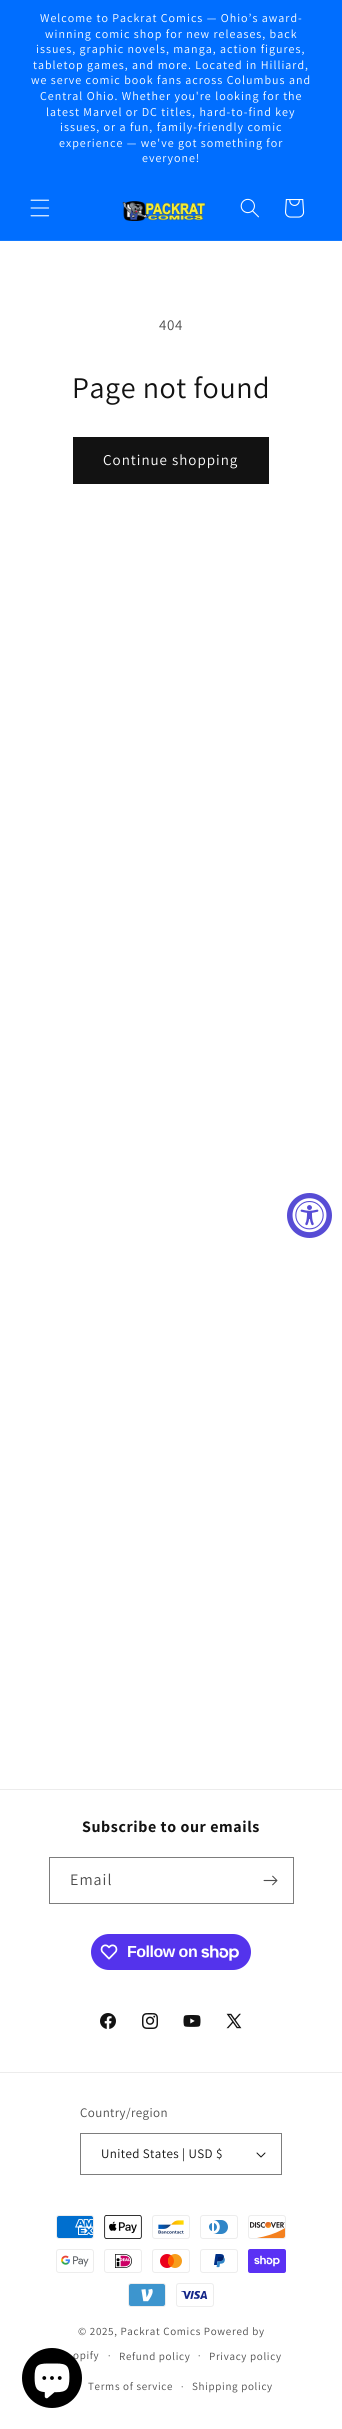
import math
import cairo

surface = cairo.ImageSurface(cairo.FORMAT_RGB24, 342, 2429)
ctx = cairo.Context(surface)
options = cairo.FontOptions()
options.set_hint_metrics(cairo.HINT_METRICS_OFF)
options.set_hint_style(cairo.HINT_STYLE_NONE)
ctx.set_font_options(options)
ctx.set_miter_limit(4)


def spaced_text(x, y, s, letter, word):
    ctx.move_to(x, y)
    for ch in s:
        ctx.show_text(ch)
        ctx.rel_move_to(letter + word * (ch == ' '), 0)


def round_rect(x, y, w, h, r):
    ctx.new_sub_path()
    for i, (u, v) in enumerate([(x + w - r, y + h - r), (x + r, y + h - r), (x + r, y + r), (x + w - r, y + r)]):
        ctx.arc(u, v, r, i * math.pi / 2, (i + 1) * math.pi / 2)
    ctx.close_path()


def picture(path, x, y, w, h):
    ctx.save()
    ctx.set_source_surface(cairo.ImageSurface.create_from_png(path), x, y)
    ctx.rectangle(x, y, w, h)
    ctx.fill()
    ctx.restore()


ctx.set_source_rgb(1, 1, 1)
ctx.paint()
ctx.set_source_rgb(0, 0.431, 1)
ctx.rectangle(0, 0, 342, 240)
ctx.fill()
ctx.set_source_rgb(0.078, 0.478, 1)
ctx.rectangle(0, 240, 342, 1)
ctx.fill()
picture("img1.png", 30, 199, 20, 18)
picture("img2.png", 122, 201, 84, 20)
picture("img3.png", 240, 198, 19, 20)
picture("img4.png", 285, 199, 20, 19)
ctx.select_font_face("Assistant")
ctx.set_font_size(12)
ctx.set_source_rgb(1, 1, 1)
spaced_text(40, 22, "Welcome to Packrat Comics — Ohio’s award-", 1, 0)
spaced_text(45, 38, "winning comic shop for new releases, back", 1, 0)
spaced_text(36, 53, "issues, graphic novels, manga, action figures,", 1, 0)
spaced_text(33, 69, "tabletop games, and more. Located in Hilliard,", 1, 0)
spaced_text(31, 84, "we serve comic book fans across Columbus and", 1, 0)
spaced_text(40, 100, "Central Ohio. Whether you're looking for the", 1, 0)
spaced_text(46, 116, "latest Marvel or DC titles, hard-to-find key", 1, 0)
spaced_text(60, 131, "issues, or a fun, family-friendly comic", 1, 0)
spaced_text(59, 147, "experience — we've got something for", 1, 0)
spaced_text(142, 162, "everyone!", 1, 0)
ctx.set_font_size(15)
ctx.set_source_rgb(0.302, 0.302, 0.302)
spaced_text(159, 330, "404", 0.6, 0)
ctx.set_font_size(30)
ctx.set_source_rgb(0.071, 0.071, 0.071)
spaced_text(72, 398, "Page not found", 0.6, 0)
ctx.rectangle(73, 437, 196, 47)
ctx.fill()
ctx.set_font_size(15)
ctx.set_source_rgb(1, 1, 1)
spaced_text(103, 465, "Continue shopping", 1, 0)
ctx.set_source_rgb(0.341, 0.298, 0.835)
ctx.new_path()
ctx.arc(309.5, 1215.5, 22.5, 0, 2 * math.pi)
ctx.fill()
picture("img5.png", 292, 1198, 35, 35)
ctx.set_font_size(11)
ctx.set_source_rgb(0.302, 0.302, 0.302)
spaced_text(73, 2359, "opify", 0.7, 0)
ctx.set_source_rgb(0, 0, 0)
ctx.new_path()
ctx.arc(52, 2378, 30, 0, 2 * math.pi)
ctx.fill()
picture("img6.png", 34, 2363, 36, 36)
ctx.set_source_rgb(0.925, 0.925, 0.925)
ctx.rectangle(0, 1789, 342, 1)
ctx.fill()
ctx.select_font_face("Assistant", cairo.FONT_SLANT_NORMAL, cairo.FONT_WEIGHT_BOLD)
ctx.set_font_size(16)
ctx.set_source_rgb(0.071, 0.071, 0.071)
spaced_text(82, 1832, "Subscribe to our emails", 0.6, 0)
ctx.rectangle(49.5, 1857.5, 244, 46)
ctx.set_source_rgb(0.49, 0.49, 0.49)
ctx.set_line_width(1)
ctx.stroke()
ctx.select_font_face("Assistant")
ctx.set_source_rgb(0.302, 0.302, 0.302)
spaced_text(70, 1885, "Email", 1, 0)
picture("img7.png", 263, 1875, 15, 11)
ctx.set_source_rgb(0.329, 0.2, 0.922)
round_rect(91, 1934, 160, 36, 18)
ctx.fill()
picture("img8.png", 100, 1944, 18, 16)
ctx.select_font_face("Liberation Sans", cairo.FONT_SLANT_NORMAL, cairo.FONT_WEIGHT_BOLD)
ctx.set_source_rgb(1, 1, 1)
spaced_text(127, 1957, "Follow on", -0.5, 0)
picture("img9.png", 201, 1945, 38, 16)
picture("img10.png", 100, 2013, 16, 16)
picture("img11.png", 142, 2013, 16, 16)
picture("img12.png", 183, 2015, 18, 12)
picture("img13.png", 226, 2013, 16, 16)
ctx.set_source_rgb(0.925, 0.925, 0.925)
ctx.rectangle(0, 2072, 342, 1)
ctx.fill()
ctx.select_font_face("Assistant")
ctx.set_font_size(13)
ctx.set_source_rgb(0.302, 0.302, 0.302)
spaced_text(80, 2117, "Country/region", 0.4, 0)
picture("img14.png", 256, 2152, 10, 6)
ctx.rectangle(80.5, 2133.5, 201, 41)
ctx.set_source_rgb(0.49, 0.49, 0.49)
ctx.stroke()
ctx.set_source_rgb(0.071, 0.071, 0.071)
spaced_text(101, 2158, "United States | USD $", 0.4, 0)
picture("img15.png", 56, 2215, 38, 24)
picture("img16.png", 104, 2215, 38, 24)
picture("img17.png", 152, 2215, 38, 24)
picture("img18.png", 200, 2215, 38, 24)
picture("img19.png", 248, 2215, 38, 24)
picture("img20.png", 56, 2249, 38, 24)
picture("img21.png", 104, 2249, 38, 24)
picture("img22.png", 152, 2249, 38, 24)
picture("img23.png", 200, 2249, 38, 24)
picture("img24.png", 248, 2249, 38, 24)
picture("img25.png", 128, 2283, 38, 24)
picture("img26.png", 176, 2283, 38, 24)
ctx.set_font_size(11)
ctx.set_source_rgb(0.302, 0.302, 0.302)
spaced_text(78, 2335, "© 2025, Packrat Comics Powered by", 0.7, 0)
ctx.set_font_size(10)
spaced_text(108, 2359, "·", 0.7, 0)
ctx.set_font_size(11)
spaced_text(119, 2360, "Refund policy", 0.7, 0)
ctx.set_font_size(10)
spaced_text(198, 2359, "·", 0.7, 0)
ctx.set_font_size(11)
spaced_text(209, 2360, "Privacy policy", 0.7, 0)
spaced_text(88, 2390, "Terms of service", 0.7, 0)
ctx.set_font_size(10)
spaced_text(181, 2390, "·", 0.7, 0)
ctx.set_font_size(11)
spaced_text(192, 2390, "Shipping policy", 0.7, 0)
surface.write_to_png("page.png")
